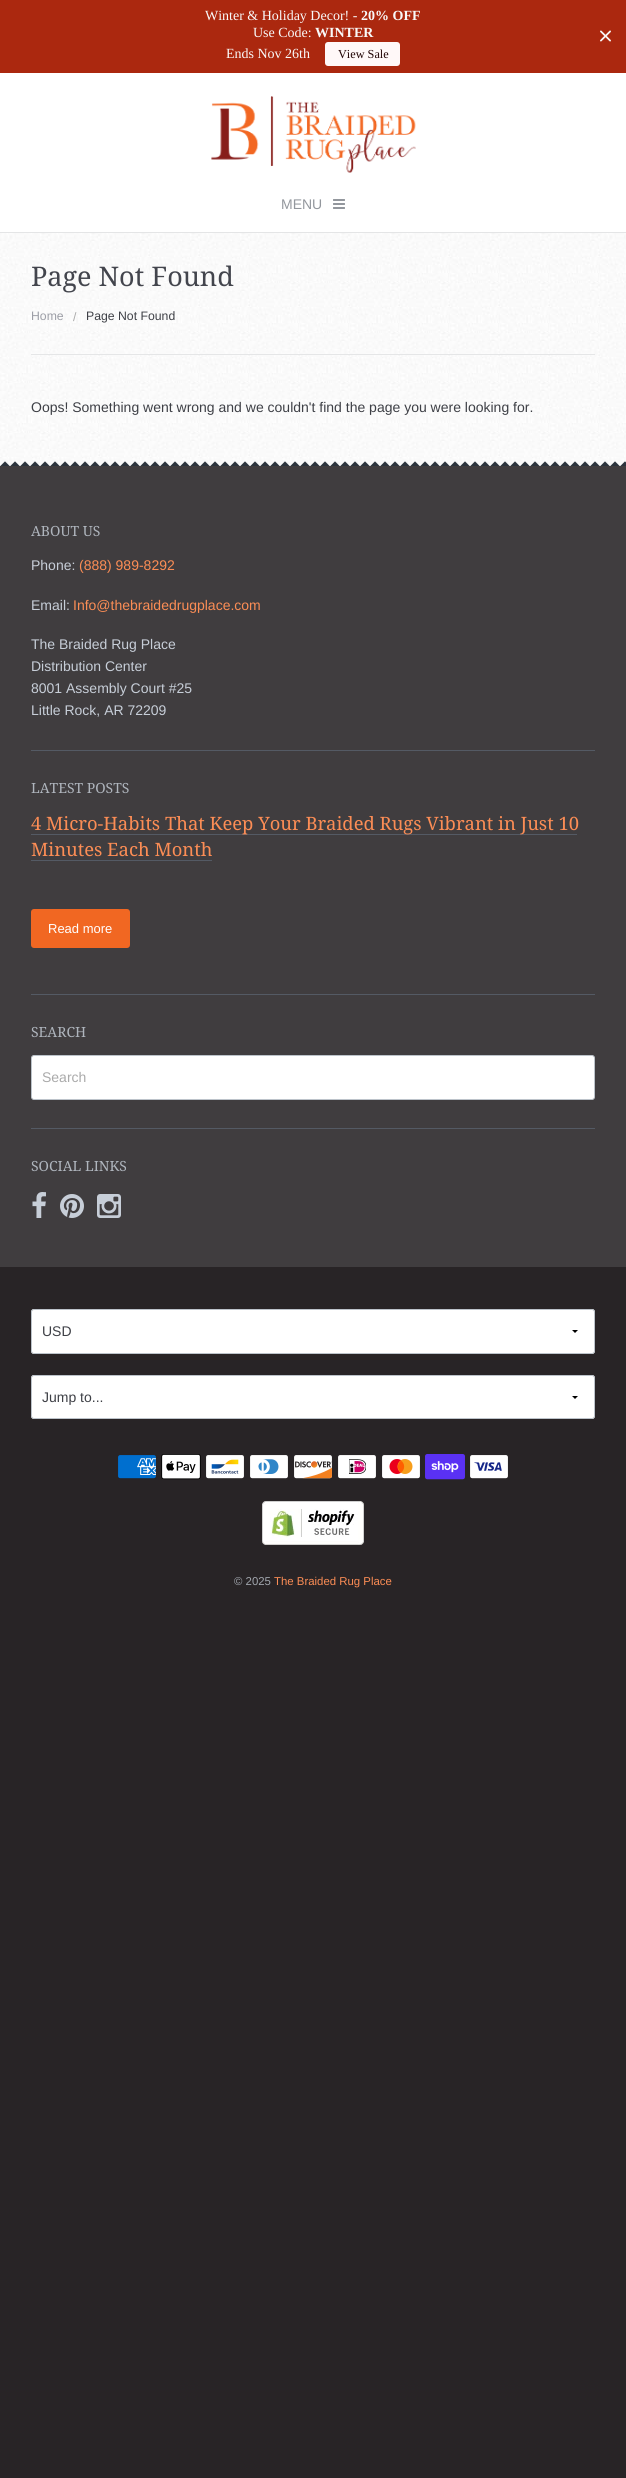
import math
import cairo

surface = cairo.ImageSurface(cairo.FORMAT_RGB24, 626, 2478)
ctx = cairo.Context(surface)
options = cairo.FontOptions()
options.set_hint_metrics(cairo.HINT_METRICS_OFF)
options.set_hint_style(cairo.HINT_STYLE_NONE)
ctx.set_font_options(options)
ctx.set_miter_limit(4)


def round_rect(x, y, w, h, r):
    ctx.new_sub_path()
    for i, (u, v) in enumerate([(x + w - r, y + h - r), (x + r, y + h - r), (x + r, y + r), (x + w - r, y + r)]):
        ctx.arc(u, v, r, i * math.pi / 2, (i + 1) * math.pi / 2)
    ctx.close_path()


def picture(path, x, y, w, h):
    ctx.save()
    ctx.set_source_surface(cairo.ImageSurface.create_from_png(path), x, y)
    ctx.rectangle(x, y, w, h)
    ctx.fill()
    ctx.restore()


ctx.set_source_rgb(0.157, 0.141, 0.149)
ctx.paint()
ctx.set_source_rgb(0.671, 0.157, 0.059)
ctx.rectangle(0, 0, 626, 73)
ctx.fill()
ctx.select_font_face("Liberation Serif")
ctx.set_font_size(14)
ctx.set_source_rgb(0.973, 0.973, 0.973)
ctx.move_to(205, 20)
ctx.show_text("Winter & Holiday Decor! -")
ctx.select_font_face("Liberation Serif", cairo.FONT_SLANT_NORMAL, cairo.FONT_WEIGHT_BOLD)
ctx.move_to(361, 20)
ctx.show_text("20% OFF")
ctx.select_font_face("Liberation Serif")
ctx.move_to(253, 37)
ctx.show_text("Use Code:")
ctx.select_font_face("Liberation Serif", cairo.FONT_SLANT_NORMAL, cairo.FONT_WEIGHT_BOLD)
ctx.move_to(315, 37)
ctx.show_text("WINTER")
ctx.select_font_face("Liberation Serif")
ctx.move_to(226, 58)
ctx.show_text("Ends Nov 26th")
ctx.set_source_rgb(1, 0.969, 0.969)
round_rect(325, 42, 75, 24, 3)
ctx.fill()
ctx.set_font_size(12.25)
ctx.set_source_rgb(0.129, 0.012, 0.012)
ctx.move_to(338, 58)
ctx.show_text("View Sale")
picture("img1.png", 600, 30, 11, 12)
ctx.set_source_rgb(1, 1, 1)
ctx.rectangle(0, 73, 626, 159)
ctx.fill()
ctx.set_source_rgb(0.894, 0.898, 0.902)
ctx.rectangle(0, 232, 626, 1)
ctx.fill()
picture("img2.png", 211, 96, 205, 77)
ctx.select_font_face("Liberation Sans")
ctx.set_font_size(14)
ctx.set_source_rgb(0.576, 0.592, 0.616)
ctx.move_to(281, 209)
ctx.show_text("MENU")
picture("img3.png", 333, 199, 12, 10)
picture("img4.png", 0, 233, 626, 233)
ctx.set_source_rgb(0.898, 0.902, 0.906)
ctx.rectangle(31, 354, 564, 1)
ctx.fill()
ctx.select_font_face("Droid Serif")
ctx.set_font_size(27)
ctx.set_source_rgb(0.263, 0.271, 0.302)
ctx.move_to(31, 286)
ctx.show_text("Page Not Found")
ctx.select_font_face("Liberation Sans")
ctx.set_font_size(12.25)
ctx.set_source_rgb(0.612, 0.62, 0.651)
ctx.move_to(31, 320)
ctx.show_text("Home")
ctx.set_source_rgb(0.667, 0.667, 0.667)
ctx.move_to(73, 321)
ctx.show_text("/")
ctx.set_source_rgb(0.243, 0.251, 0.275)
ctx.move_to(86, 320)
ctx.show_text("Page Not Found")
ctx.set_font_size(14)
ctx.move_to(31, 412)
ctx.show_text("Oops! Something went wrong and we couldn't find the page you were looking for.")
picture("img5.png", 0, 461, 626, 5)
ctx.set_source_rgb(0.251, 0.239, 0.247)
ctx.rectangle(0, 466, 626, 801)
ctx.fill()
ctx.set_source_rgb(0.329, 0.353, 0.392)
ctx.rectangle(31, 750, 564, 1)
ctx.fill()
ctx.select_font_face("Droid Serif")
ctx.set_source_rgb(0.686, 0.71, 0.741)
ctx.move_to(31, 536)
ctx.show_text("ABOUT US")
ctx.select_font_face("Liberation Sans")
ctx.set_source_rgb(0.78, 0.808, 0.847)
ctx.move_to(31, 570)
ctx.show_text("Phone:")
ctx.set_source_rgb(0.988, 0.553, 0.333)
ctx.move_to(79, 570)
ctx.show_text("(888) 989-8292")
ctx.set_source_rgb(0.78, 0.808, 0.847)
ctx.move_to(31, 610)
ctx.show_text("Email:")
ctx.set_source_rgb(0.988, 0.553, 0.333)
ctx.move_to(73, 610)
ctx.show_text("Info@thebraidedrugplace.com")
ctx.set_source_rgb(0.78, 0.808, 0.847)
ctx.move_to(31, 649)
ctx.show_text("The Braided Rug Place")
ctx.move_to(31, 671)
ctx.show_text("Distribution Center")
ctx.move_to(31, 693)
ctx.show_text("8001 Assembly Court #25")
ctx.move_to(31, 715)
ctx.show_text("Little Rock, AR 72209")
ctx.set_source_rgb(0.329, 0.353, 0.392)
ctx.rectangle(31, 994, 564, 1)
ctx.fill()
ctx.select_font_face("Droid Serif")
ctx.set_source_rgb(0.686, 0.71, 0.741)
ctx.move_to(31, 793)
ctx.show_text("LATEST POSTS")
ctx.set_source_rgb(0.329, 0.353, 0.392)
ctx.rectangle(31, 834, 546, 1)
ctx.fill()
ctx.set_font_size(18.4)
ctx.set_source_rgb(0.988, 0.553, 0.333)
ctx.move_to(31, 830)
ctx.show_text("4 Micro-Habits That Keep Your Braided Rugs Vibrant in Just 10")
ctx.move_to(31, 856)
ctx.show_text("Minutes Each Month")
ctx.set_source_rgb(0.329, 0.353, 0.392)
ctx.rectangle(31, 860, 181, 1)
ctx.fill()
ctx.set_source_rgb(0.945, 0.404, 0.133)
round_rect(31, 909, 99, 39, 3)
ctx.fill()
ctx.select_font_face("Liberation Sans")
ctx.set_font_size(13)
ctx.set_source_rgb(1, 1, 1)
ctx.move_to(48, 933)
ctx.show_text("Read more")
ctx.set_source_rgb(0.329, 0.353, 0.392)
ctx.rectangle(31, 1128, 564, 1)
ctx.fill()
ctx.select_font_face("Droid Serif")
ctx.set_font_size(14)
ctx.set_source_rgb(0.686, 0.71, 0.741)
ctx.move_to(31, 1037)
ctx.show_text("SEARCH")
ctx.set_source_rgb(1, 1, 1)
round_rect(31.5, 1055.5, 563, 44, 2.5)
ctx.fill_preserve()
ctx.set_source_rgb(0.737, 0.765, 0.792)
ctx.set_line_width(1)
ctx.stroke()
ctx.select_font_face("Liberation Sans")
ctx.set_source_rgb(0.667, 0.667, 0.667)
ctx.move_to(42, 1082)
ctx.show_text("Search")
ctx.select_font_face("Droid Serif")
ctx.set_source_rgb(0.686, 0.71, 0.741)
ctx.move_to(31, 1171)
ctx.show_text("SOCIAL LINKS")
picture("img6.png", 32, 1192, 14, 26)
picture("img7.png", 60, 1194, 24, 24)
picture("img8.png", 97, 1194, 24, 24)
ctx.set_source_rgb(1, 1, 1)
round_rect(31, 1309, 564, 45, 3)
ctx.fill()
ctx.set_source_rgb(0, 0, 0)
ctx.new_path()
ctx.move_to(578, 1330)
ctx.line_to(575, 1333)
ctx.line_to(572, 1330)
ctx.close_path()
ctx.fill()
round_rect(31.5, 1309.5, 563, 44, 2.5)
ctx.set_source_rgb(0.737, 0.765, 0.792)
ctx.stroke()
ctx.select_font_face("Liberation Sans")
ctx.set_source_rgb(0.243, 0.251, 0.275)
ctx.move_to(42, 1336)
ctx.show_text("USD")
ctx.set_source_rgb(1, 1, 1)
round_rect(31, 1375, 564, 44, 3)
ctx.fill()
ctx.set_source_rgb(0, 0, 0)
ctx.new_path()
ctx.move_to(578, 1396)
ctx.line_to(575, 1399)
ctx.line_to(572, 1396)
ctx.close_path()
ctx.fill()
round_rect(31.5, 1375.5, 563, 43, 2.5)
ctx.set_source_rgb(0.737, 0.765, 0.792)
ctx.stroke()
ctx.set_source_rgb(0.243, 0.251, 0.275)
ctx.move_to(42, 1402)
ctx.show_text("Jump to...")
picture("img9.png", 118, 1455, 38, 24)
picture("img10.png", 161, 1454, 40, 26)
picture("img11.png", 206, 1455, 38, 24)
picture("img12.png", 250, 1455, 38, 24)
picture("img13.png", 294, 1455, 38, 24)
picture("img14.png", 338, 1455, 38, 24)
picture("img15.png", 382, 1455, 38, 24)
picture("img16.png", 425, 1454, 40, 26)
picture("img17.png", 470, 1455, 38, 24)
picture("img18.png", 262, 1501, 102, 44)
ctx.set_font_size(11.4)
ctx.set_source_rgb(0.631, 0.651, 0.678)
ctx.move_to(234, 1585)
ctx.show_text("© 2025")
ctx.set_source_rgb(0.988, 0.553, 0.333)
ctx.move_to(274, 1585)
ctx.show_text("The Braided Rug Place")
surface.write_to_png("page.png")
